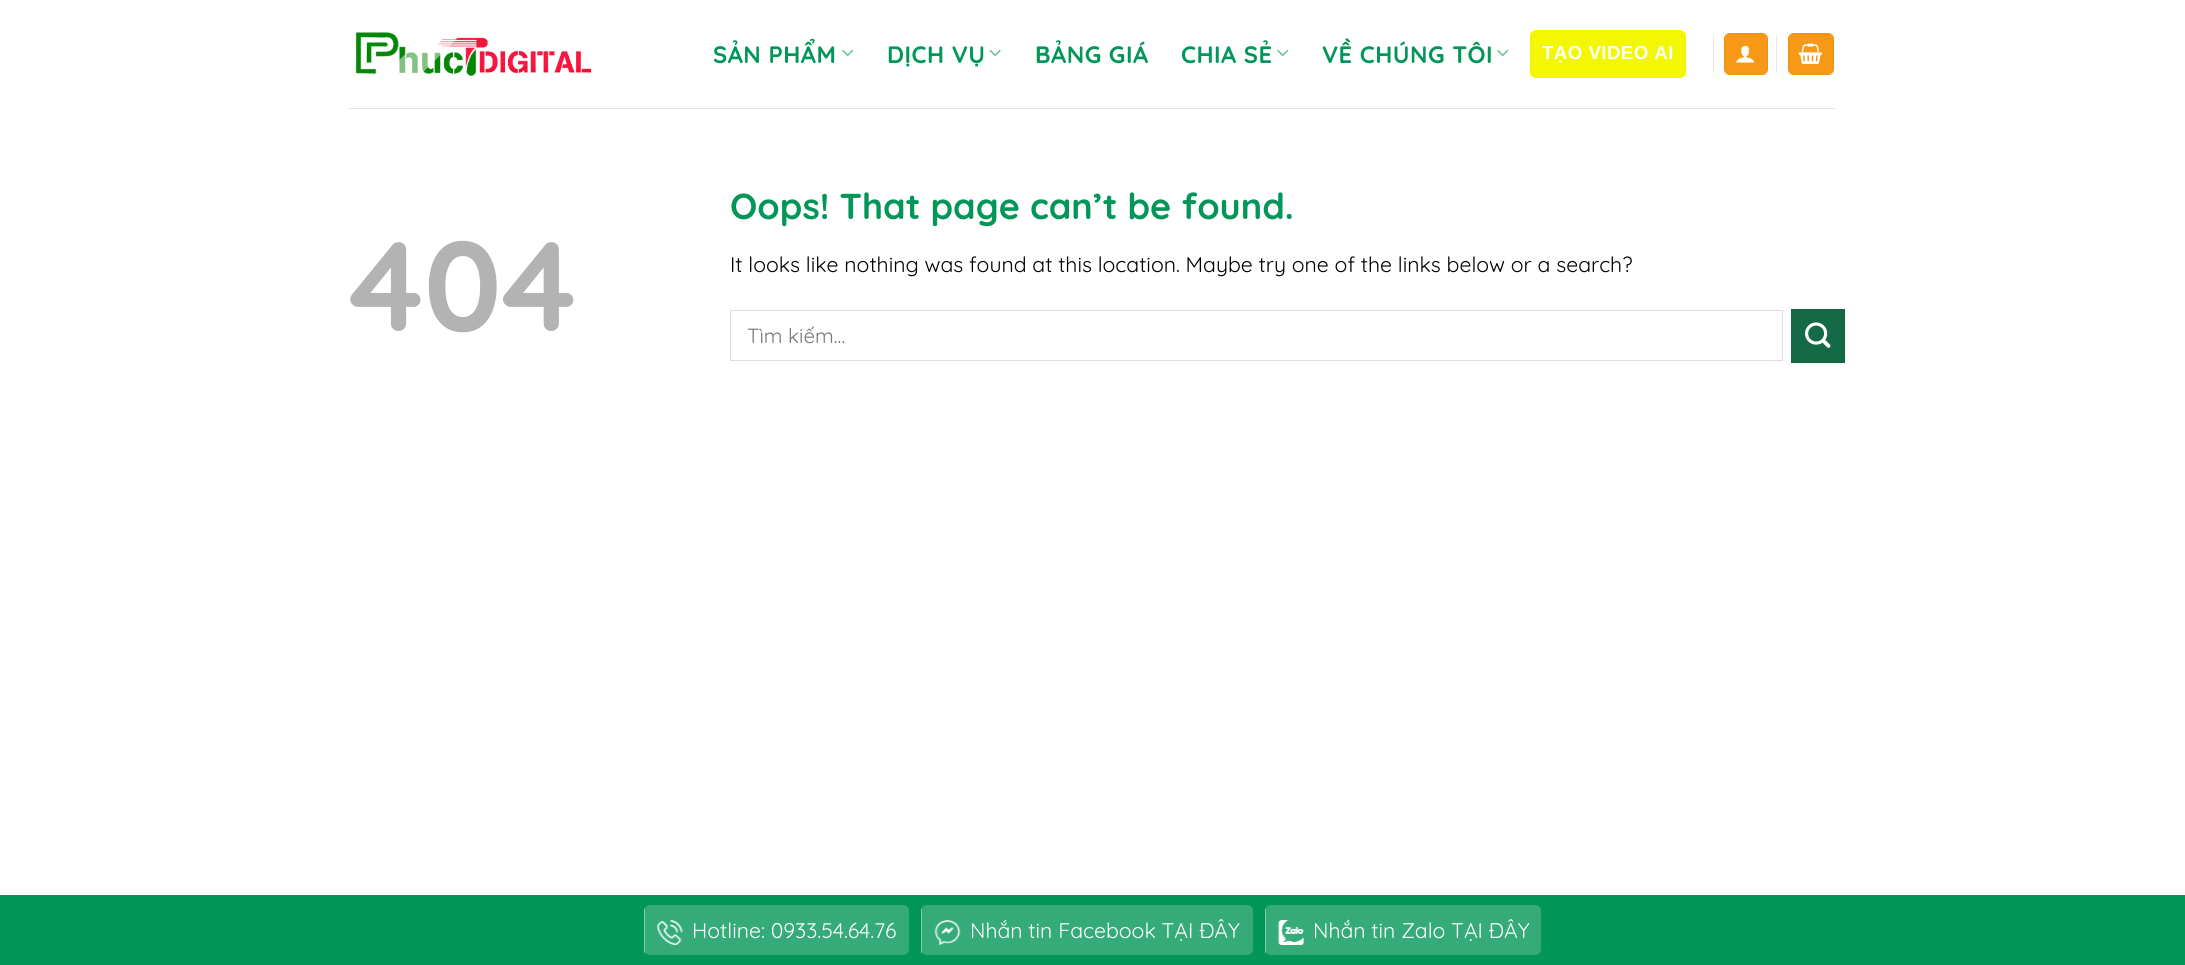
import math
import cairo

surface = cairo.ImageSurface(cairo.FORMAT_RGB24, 2185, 965)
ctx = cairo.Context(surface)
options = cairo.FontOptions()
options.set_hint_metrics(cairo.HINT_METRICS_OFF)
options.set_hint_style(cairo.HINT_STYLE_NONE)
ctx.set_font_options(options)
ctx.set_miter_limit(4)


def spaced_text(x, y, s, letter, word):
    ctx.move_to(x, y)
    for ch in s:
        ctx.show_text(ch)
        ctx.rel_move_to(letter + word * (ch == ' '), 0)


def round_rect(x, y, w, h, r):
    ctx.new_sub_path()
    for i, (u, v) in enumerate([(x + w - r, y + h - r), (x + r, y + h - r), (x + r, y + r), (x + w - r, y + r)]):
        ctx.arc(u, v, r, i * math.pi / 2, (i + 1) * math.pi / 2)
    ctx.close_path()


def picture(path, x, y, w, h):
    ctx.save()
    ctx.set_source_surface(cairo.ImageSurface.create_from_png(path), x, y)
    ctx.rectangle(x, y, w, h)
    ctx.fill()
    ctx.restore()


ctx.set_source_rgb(1, 1, 1)
ctx.paint()
picture("img1.png", 356, 32, 236, 44)
ctx.set_source_rgba(1, 1, 1, 0.5)
ctx.new_path()
ctx.move_to(367, 92)
ctx.line_to(500, -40)
ctx.line_to(518, -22)
ctx.line_to(385, 110)
ctx.close_path()
ctx.fill()
ctx.select_font_face("Quicksand", cairo.FONT_SLANT_NORMAL, cairo.FONT_WEIGHT_BOLD)
ctx.set_font_size(23.75)
ctx.set_source_rgb(0.012, 0.588, 0.349)
spaced_text(713, 63, "SẢN PHẨM", 0.5, 0)
picture("img2.png", 842, 49, 12, 8)
spaced_text(887, 63, "DỊCH VỤ", 0.5, 0)
picture("img3.png", 989, 49, 12, 8)
spaced_text(1035, 63, "BẢNG GIÁ", 0.5, 0)
spaced_text(1181, 63, "CHIA SẺ", 0.5, 0)
picture("img2.png", 1277, 49, 12, 8)
spaced_text(1322, 63, "VỀ CHÚNG TÔI", 0.5, 0)
picture("img2.png", 1497, 49, 12, 8)
ctx.set_source_rgb(0.953, 0.969, 0.008)
round_rect(1530, 30, 156, 48, 6)
ctx.fill()
ctx.select_font_face("Liberation Sans", cairo.FONT_SLANT_NORMAL, cairo.FONT_WEIGHT_BOLD)
ctx.set_font_size(18.75)
ctx.set_source_rgb(1, 1, 1)
spaced_text(1542, 59, "TẠO VIDEO AI", 0.4, 0)
ctx.set_source_rgb(0.902, 0.902, 0.902)
ctx.rectangle(1713, 35, 1, 38)
ctx.fill()
ctx.set_source_rgb(0.965, 0.6, 0.09)
round_rect(1724, 33, 44, 42, 6)
ctx.fill()
ctx.rectangle(1724.5, 33.5, 43, 41)
ctx.set_source_rgba(0, 0, 0, 0.05)
ctx.set_line_width(1)
ctx.stroke()
picture("img4.png", 1736, 46, 19, 17)
ctx.set_source_rgb(0.902, 0.902, 0.902)
ctx.rectangle(1776, 35, 1, 38)
ctx.fill()
ctx.set_source_rgb(0.965, 0.6, 0.09)
round_rect(1788, 33, 46, 42, 6)
ctx.fill()
ctx.rectangle(1788.5, 33.5, 45, 41)
ctx.set_source_rgba(0, 0, 0, 0.05)
ctx.stroke()
picture("img5.png", 1798, 43, 24, 21)
ctx.set_source_rgb(0.902, 0.902, 0.902)
ctx.rectangle(349, 108, 1487, 1)
ctx.fill()
ctx.select_font_face("Quicksand", cairo.FONT_SLANT_NORMAL, cairo.FONT_WEIGHT_BOLD)
ctx.set_font_size(127)
ctx.set_source_rgb(0.702, 0.702, 0.702)
ctx.move_to(349, 331)
ctx.show_text("404")
ctx.set_font_size(36)
ctx.set_source_rgb(0.012, 0.588, 0.349)
ctx.move_to(730, 219)
ctx.show_text("Oops! That page can’t be found.")
ctx.select_font_face("Quicksand")
ctx.set_font_size(21.2)
ctx.set_source_rgb(0, 0, 0)
ctx.move_to(730, 272)
ctx.show_text("It looks like nothing was found at this location. Maybe try one of the links below or a search?")
ctx.rectangle(730.5, 310.5, 1052, 50)
ctx.set_source_rgb(0.867, 0.867, 0.867)
ctx.stroke()
ctx.set_font_size(20.5)
ctx.set_source_rgb(0.459, 0.459, 0.459)
ctx.move_to(747, 343)
ctx.show_text("Tìm kiếm…")
ctx.set_source_rgb(0.082, 0.412, 0.275)
ctx.rectangle(1791.5, 309.5, 53, 53)
ctx.fill_preserve()
ctx.set_source_rgb(0.078, 0.392, 0.263)
ctx.stroke()
picture("img6.png", 1805, 322, 26, 26)
ctx.set_source_rgb(0.012, 0.588, 0.349)
ctx.rectangle(0, 895, 2185, 70)
ctx.fill()
ctx.set_source_rgb(0.208, 0.671, 0.478)
round_rect(644, 905, 265, 50, 6)
ctx.fill()
ctx.set_source_rgba(1, 1, 1, 0.38)
ctx.rectangle(644, 909, 1, 44)
ctx.fill()
picture("img7.png", 657, 920, 27, 25)
ctx.set_font_size(21.2)
ctx.set_source_rgb(1, 1, 1)
ctx.move_to(692, 938)
ctx.show_text("Hotline: 0933.54.64.76")
ctx.set_source_rgb(0.208, 0.671, 0.478)
round_rect(921, 905, 332, 50, 6)
ctx.fill()
ctx.set_source_rgba(1, 1, 1, 0.38)
ctx.rectangle(921, 909, 1, 44)
ctx.fill()
picture("img8.png", 934, 920, 27, 25)
ctx.set_source_rgb(1, 1, 1)
ctx.move_to(970, 938)
ctx.show_text("Nhắn tin Facebook TẠI ĐÂY")
ctx.set_source_rgb(0.208, 0.671, 0.478)
round_rect(1265, 905, 276, 50, 6)
ctx.fill()
ctx.set_source_rgba(1, 1, 1, 0.38)
ctx.rectangle(1265, 909, 1, 44)
ctx.fill()
picture("img9.png", 1278, 920, 26, 25)
ctx.set_source_rgb(1, 1, 1)
ctx.move_to(1313, 938)
ctx.show_text("Nhắn tin Zalo TẠI ĐÂY")
surface.write_to_png("page.png")
